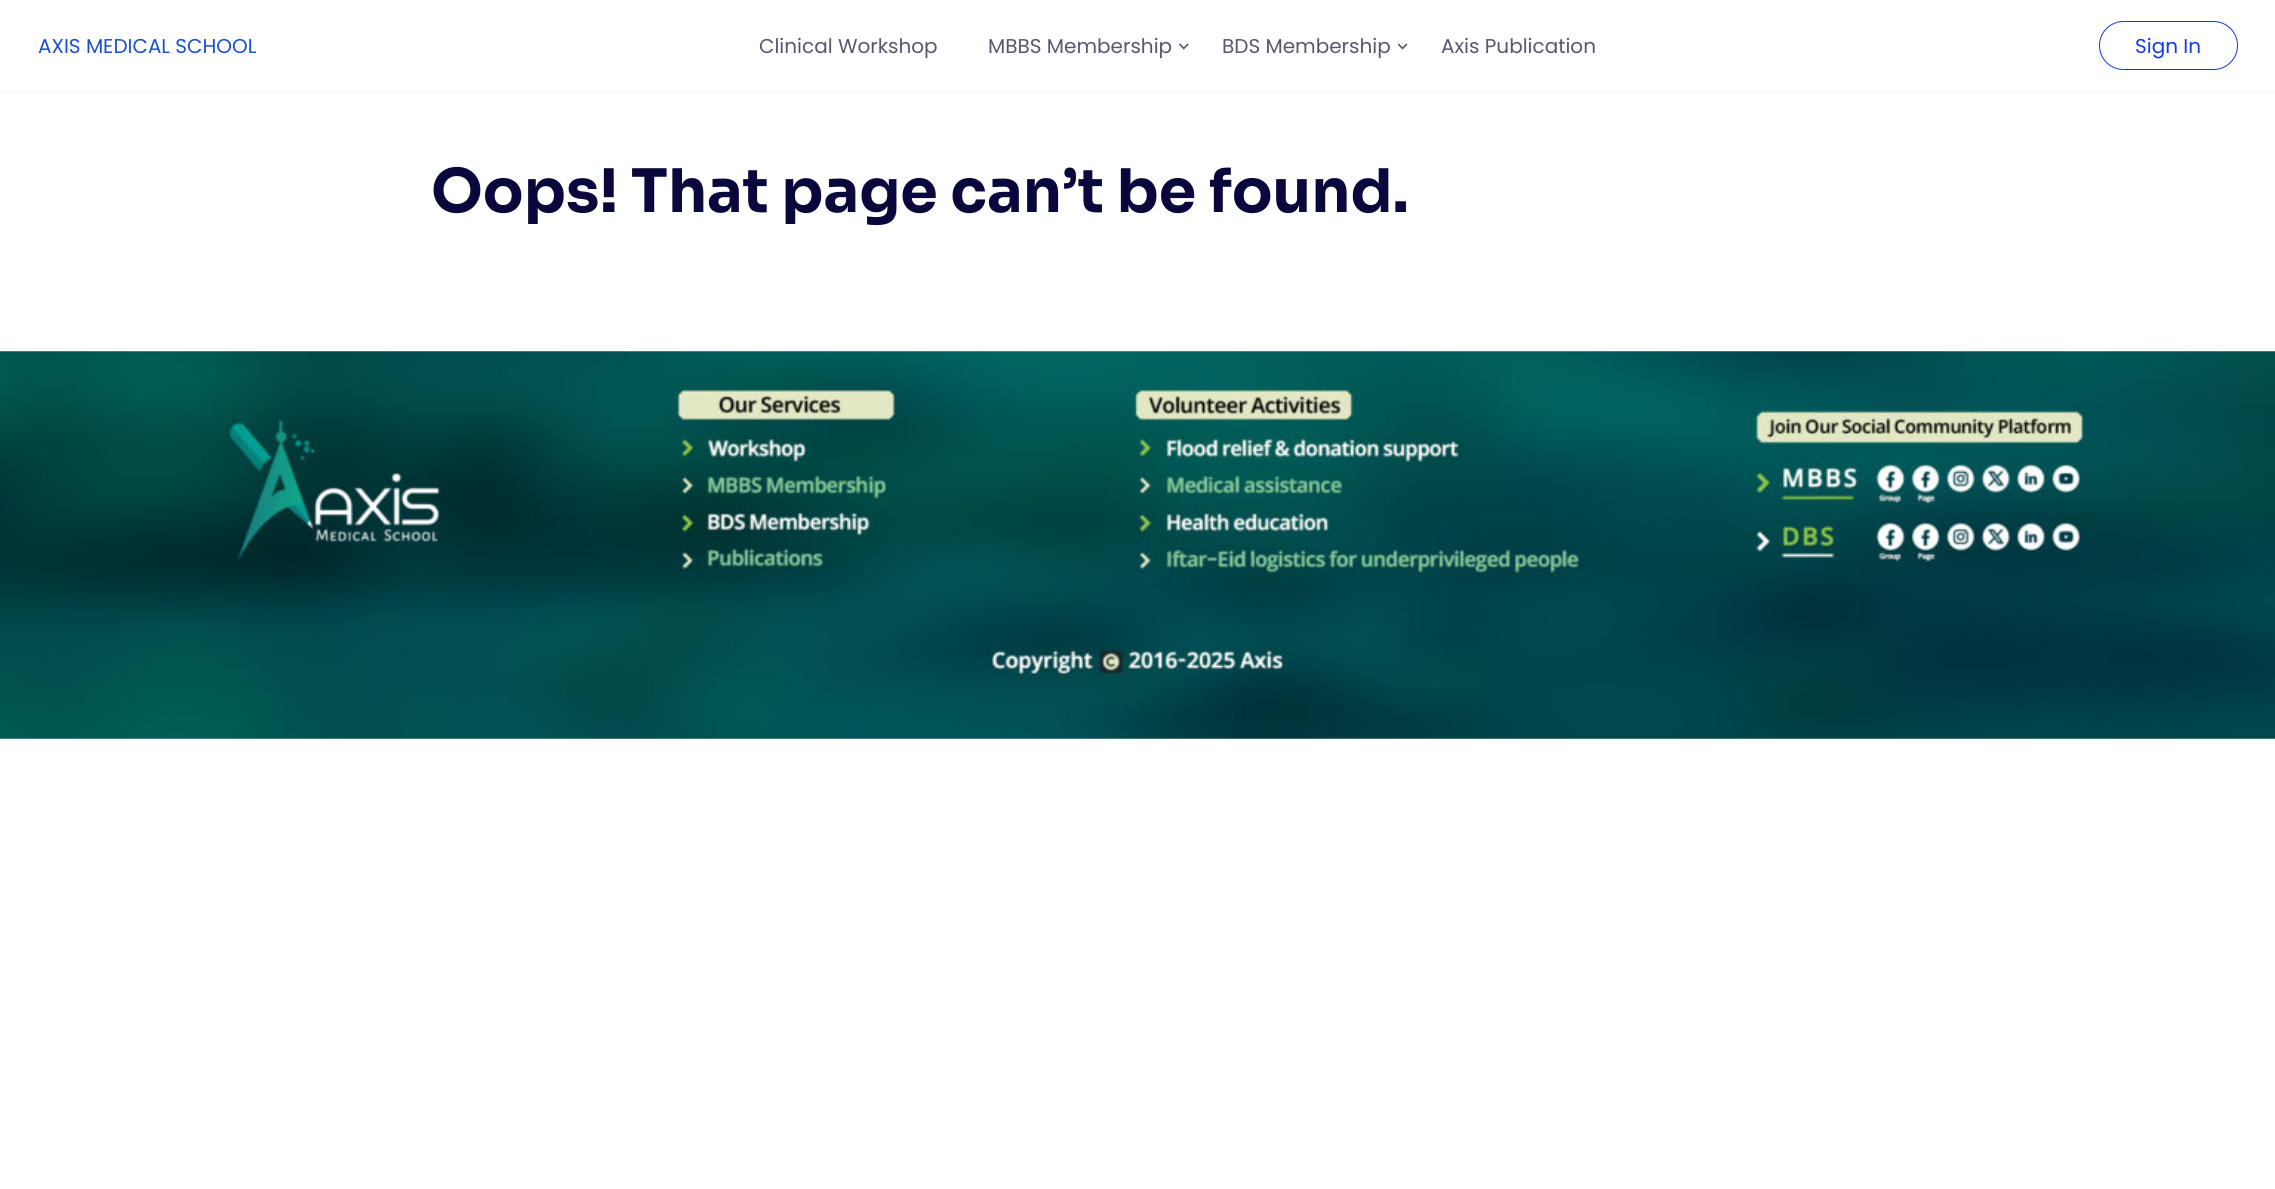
import math
import cairo

surface = cairo.ImageSurface(cairo.FORMAT_RGB24, 2275, 1189)
ctx = cairo.Context(surface)
options = cairo.FontOptions()
options.set_hint_metrics(cairo.HINT_METRICS_OFF)
options.set_hint_style(cairo.HINT_STYLE_NONE)
ctx.set_font_options(options)
ctx.set_miter_limit(4)


def round_rect(x, y, w, h, r):
    ctx.new_sub_path()
    for i, (u, v) in enumerate([(x + w - r, y + h - r), (x + r, y + h - r), (x + r, y + r), (x + w - r, y + r)]):
        ctx.arc(u, v, r, i * math.pi / 2, (i + 1) * math.pi / 2)
    ctx.close_path()


def picture(path, x, y, w, h):
    ctx.save()
    ctx.set_source_surface(cairo.ImageSurface.create_from_png(path), x, y)
    ctx.rectangle(x, y, w, h)
    ctx.fill()
    ctx.restore()


ctx.set_source_rgb(1, 1, 1)
ctx.paint()
ctx.set_source_rgb(0.973, 0.973, 0.973)
ctx.rectangle(0, 91, 2275, 3)
ctx.fill()
ctx.select_font_face("Poppins")
ctx.set_font_size(20)
ctx.set_source_rgb(0.098, 0.314, 0.82)
ctx.move_to(38, 53)
ctx.show_text("AXIS MEDICAL SCHOOL")
ctx.set_source_rgb(0.341, 0.345, 0.431)
ctx.move_to(759, 53)
ctx.show_text("Clinical Workshop")
ctx.move_to(988, 53)
ctx.show_text("MBBS Membership")
picture("img1.png", 1179, 43, 10, 7)
ctx.move_to(1222, 53)
ctx.show_text("BDS Membership")
picture("img2.png", 1398, 43, 10, 7)
ctx.move_to(1441, 53)
ctx.show_text("Axis Publication")
round_rect(2099.5, 21.5, 138, 48, 24)
ctx.set_source_rgb(0.082, 0.224, 0.914)
ctx.set_line_width(1)
ctx.stroke()
ctx.move_to(2135, 53)
ctx.show_text("Sign In")
ctx.select_font_face("Sora", cairo.FONT_SLANT_NORMAL, cairo.FONT_WEIGHT_BOLD)
ctx.set_font_size(60)
ctx.set_source_rgb(0.039, 0.031, 0.231)
ctx.move_to(431, 212)
ctx.show_text("Oops! That page can’t be found.")
picture("img3.png", 0, 351, 2275, 388)
surface.write_to_png("page.png")
